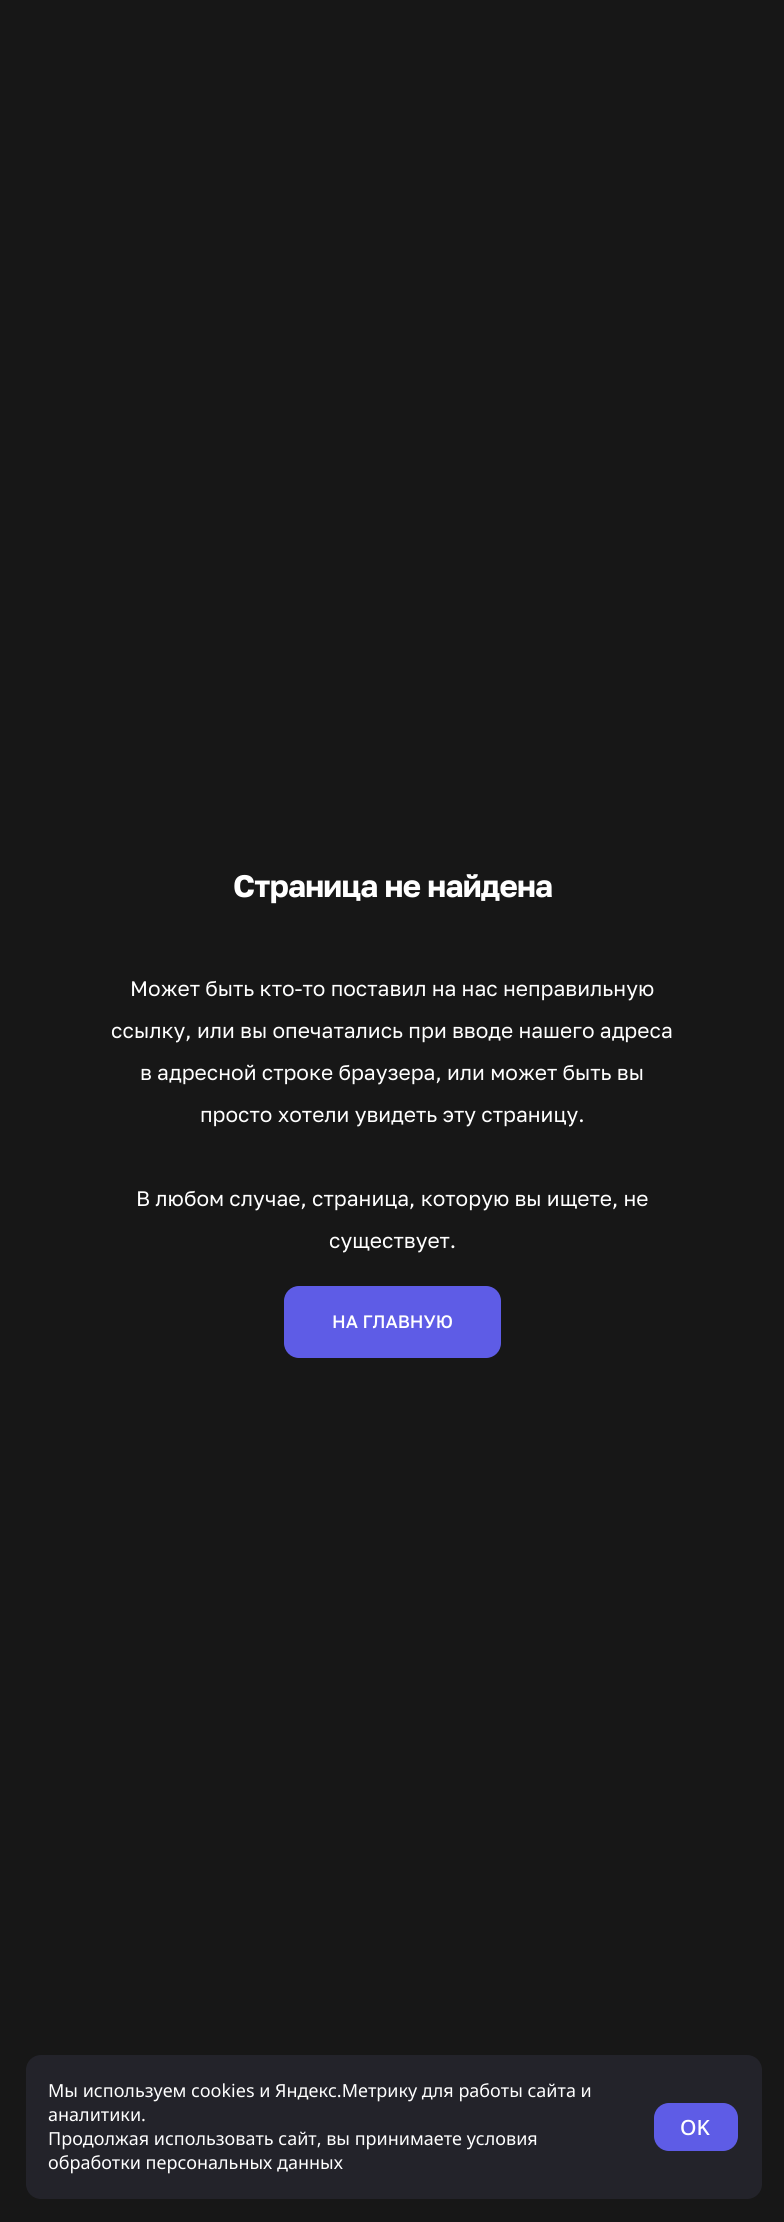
import math
import cairo

surface = cairo.ImageSurface(cairo.FORMAT_RGB24, 784, 2222)
ctx = cairo.Context(surface)
options = cairo.FontOptions()
options.set_hint_metrics(cairo.HINT_METRICS_OFF)
options.set_hint_style(cairo.HINT_STYLE_NONE)
ctx.set_font_options(options)
ctx.set_miter_limit(4)


def spaced_text(x, y, s, letter, word):
    ctx.move_to(x, y)
    for ch in s:
        ctx.show_text(ch)
        ctx.rel_move_to(letter + word * (ch == ' '), 0)


def round_rect(x, y, w, h, r):
    ctx.new_sub_path()
    for i, (u, v) in enumerate([(x + w - r, y + h - r), (x + r, y + h - r), (x + r, y + r), (x + w - r, y + r)]):
        ctx.arc(u, v, r, i * math.pi / 2, (i + 1) * math.pi / 2)
    ctx.close_path()


ctx.set_source_rgb(0.09, 0.09, 0.09)
ctx.paint()
ctx.select_font_face("Golos Text", cairo.FONT_SLANT_NORMAL, cairo.FONT_WEIGHT_BOLD)
ctx.set_font_size(31)
ctx.set_source_rgb(1, 1, 1)
spaced_text(233, 897, "Страница не найдена", -0.75, 0)
ctx.select_font_face("Golos Text")
ctx.set_font_size(21)
ctx.move_to(130, 996)
ctx.show_text("Может быть кто-то поставил на нас неправильную")
ctx.move_to(111, 1038)
ctx.show_text("ссылку, или вы опечатались при вводе нашего адреса")
ctx.move_to(140, 1080)
ctx.show_text("в адресной строке браузера, или может быть вы")
ctx.move_to(200, 1122)
ctx.show_text("просто хотели увидеть эту страницу.")
ctx.move_to(136, 1206)
ctx.show_text("В любом случае, страница, которую вы ищете, не")
ctx.move_to(329, 1248)
ctx.show_text("существует.")
ctx.set_source_rgb(0.369, 0.361, 0.902)
round_rect(284, 1286, 217, 72, 15)
ctx.fill()
ctx.select_font_face("Golos Text Medium")
ctx.set_font_size(18)
ctx.set_source_rgb(1, 1, 1)
ctx.move_to(332, 1328)
ctx.show_text("НА ГЛАВНУЮ")
ctx.set_source_rgb(0.137, 0.137, 0.165)
round_rect(26, 2055, 736, 144, 15)
ctx.fill()
ctx.select_font_face("Noto Sans")
ctx.set_source_rgb(1, 1, 1)
ctx.move_to(48, 2097)
ctx.show_text("Мы используем cookies и Яндекс.Метрику для работы сайта и")
ctx.move_to(48, 2121)
ctx.show_text("аналитики.")
ctx.move_to(48, 2145)
ctx.show_text("Продолжая использовать сайт, вы принимаете условия")
ctx.move_to(48, 2169)
ctx.show_text("обработки персональных данных")
ctx.set_source_rgb(0.369, 0.361, 0.902)
round_rect(654, 2103, 84, 48, 15)
ctx.fill()
ctx.select_font_face("Noto Sans Medium")
ctx.set_font_size(21)
ctx.set_source_rgb(1, 1, 1)
ctx.move_to(680, 2135)
ctx.show_text("OK")
surface.write_to_png("page.png")
